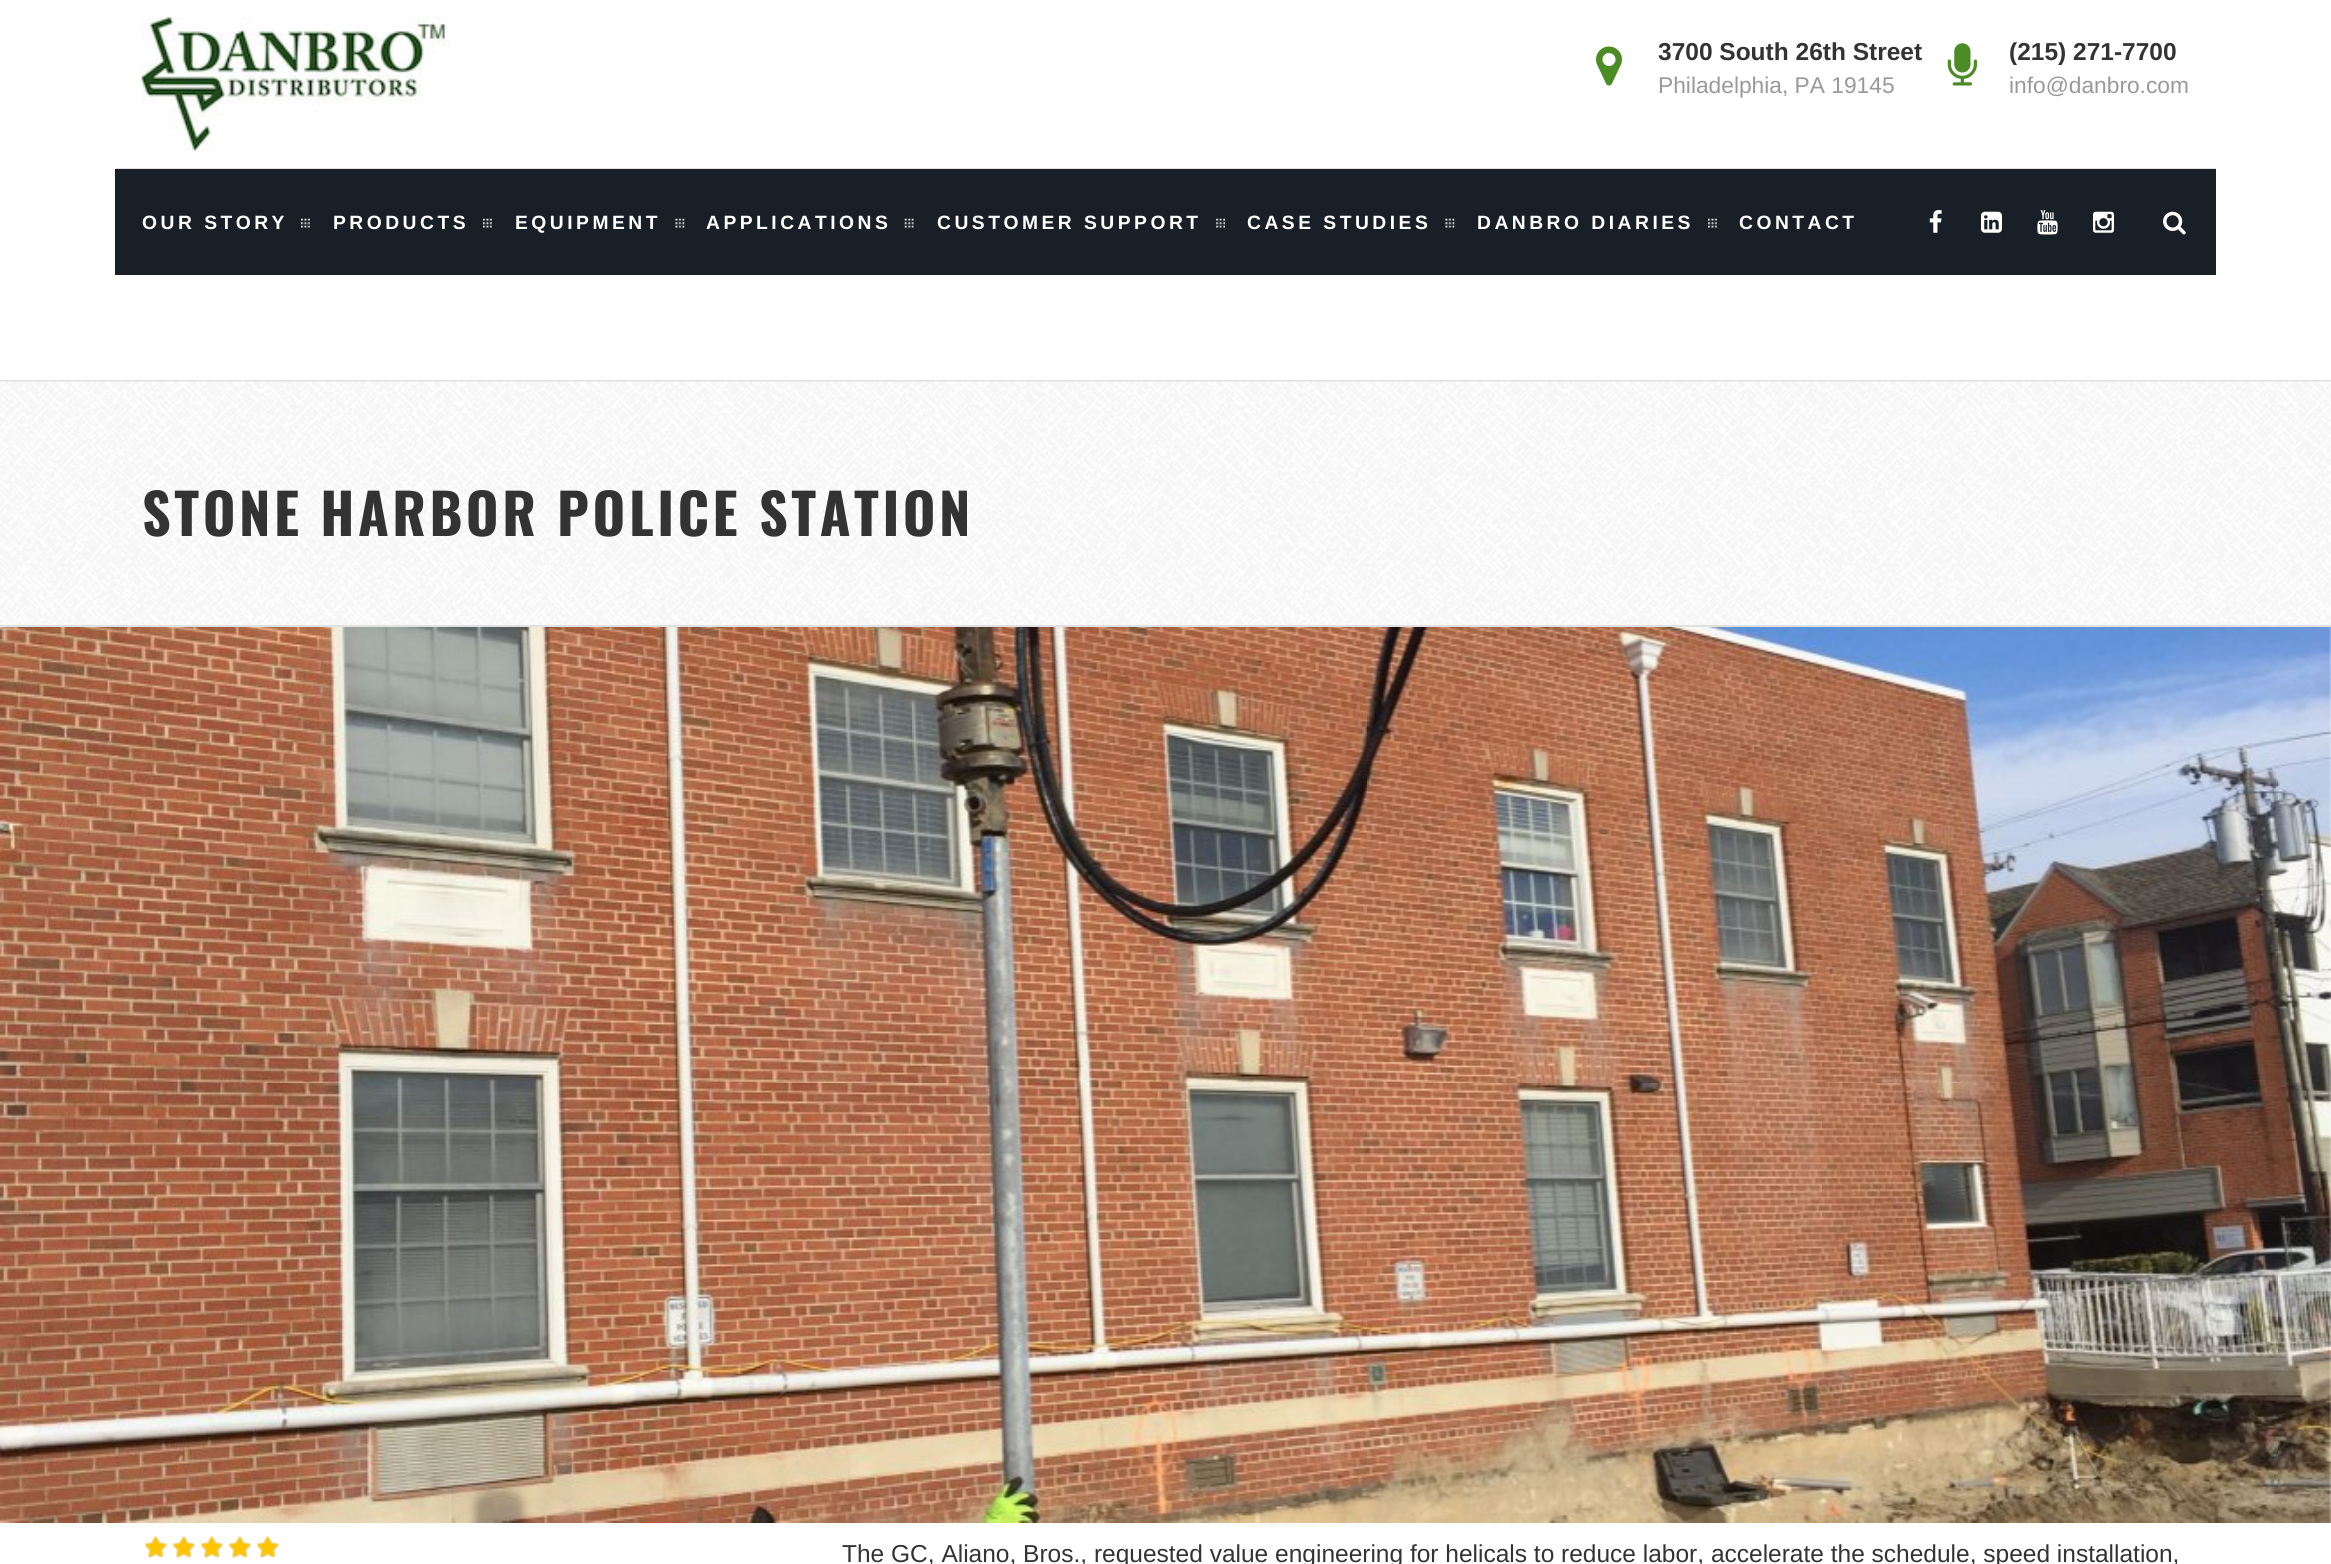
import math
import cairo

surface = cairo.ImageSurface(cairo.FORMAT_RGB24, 2331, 1564)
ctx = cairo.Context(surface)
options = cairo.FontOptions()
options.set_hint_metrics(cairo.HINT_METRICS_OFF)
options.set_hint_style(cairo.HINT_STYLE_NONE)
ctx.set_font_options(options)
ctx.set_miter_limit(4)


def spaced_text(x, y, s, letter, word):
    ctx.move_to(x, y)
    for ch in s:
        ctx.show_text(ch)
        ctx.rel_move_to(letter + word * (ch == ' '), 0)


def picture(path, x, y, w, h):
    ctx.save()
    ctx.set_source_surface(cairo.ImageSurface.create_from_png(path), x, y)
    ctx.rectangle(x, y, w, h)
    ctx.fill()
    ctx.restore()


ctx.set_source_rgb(1, 1, 1)
ctx.paint()
ctx.set_source_rgb(0.882, 0.882, 0.882)
ctx.rectangle(116, 168, 2100, 1)
ctx.fill()
picture("img1.png", 141, 17, 309, 134)
picture("img2.png", 1596, 46, 26, 40)
ctx.select_font_face("Arimo", cairo.FONT_SLANT_NORMAL, cairo.FONT_WEIGHT_BOLD)
ctx.set_font_size(24.5)
ctx.set_source_rgb(0.2, 0.2, 0.2)
ctx.move_to(1658, 60)
ctx.show_text("3700 South 26th Street")
ctx.select_font_face("Arimo")
ctx.set_font_size(22.75)
ctx.set_source_rgb(0.6, 0.6, 0.6)
ctx.move_to(1658, 93)
ctx.show_text("Philadelphia, PA 19145")
picture("img3.png", 1947, 43, 30, 43)
ctx.select_font_face("Arimo", cairo.FONT_SLANT_NORMAL, cairo.FONT_WEIGHT_BOLD)
ctx.set_font_size(24.5)
ctx.set_source_rgb(0.2, 0.2, 0.2)
ctx.move_to(2009, 60)
ctx.show_text("(215) 271-7700")
ctx.select_font_face("Arimo")
ctx.set_font_size(22.75)
ctx.set_source_rgb(0.6, 0.6, 0.6)
ctx.move_to(2009, 93)
ctx.show_text("info@danbro.com")
ctx.set_source_rgb(0.094, 0.122, 0.153)
ctx.rectangle(115, 169, 2101, 106)
ctx.fill()
picture("img4.png", 301, 218, 9, 10)
ctx.select_font_face("Arimo", cairo.FONT_SLANT_NORMAL, cairo.FONT_WEIGHT_BOLD)
ctx.set_font_size(19.25)
ctx.set_source_rgb(1, 1, 1)
spaced_text(142, 229, "OUR STORY", 3.5, 0)
picture("img4.png", 483, 218, 9, 10)
spaced_text(333, 229, "PRODUCTS", 3.5, 0)
picture("img5.png", 675, 218, 10, 10)
spaced_text(515, 229, "EQUIPMENT", 3.5, 0)
picture("img6.png", 904, 218, 10, 10)
spaced_text(706, 229, "APPLICATIONS", 3.5, 0)
picture("img7.png", 1216, 218, 9, 10)
spaced_text(937, 229, "CUSTOMER SUPPORT", 3.5, 0)
picture("img8.png", 1445, 218, 10, 10)
spaced_text(1247, 229, "CASE STUDIES", 3.5, 0)
picture("img9.png", 1708, 218, 9, 10)
spaced_text(1477, 229, "DANBRO DIARIES", 3.5, 0)
spaced_text(1739, 229, "CONTACT", 3.5, 0)
picture("img10.png", 1929, 210, 13, 23)
picture("img11.png", 1981, 211, 21, 22)
picture("img12.png", 2037, 210, 21, 25)
picture("img13.png", 2093, 211, 21, 22)
picture("img14.png", 2163, 211, 23, 24)
ctx.set_source_rgb(0.882, 0.882, 0.882)
ctx.rectangle(0, 380, 2331, 2)
ctx.fill()
picture("img15.png", 0, 381, 2331, 244)
ctx.rectangle(0, 625, 2331, 2)
ctx.fill()
ctx.select_font_face("Oswald", cairo.FONT_SLANT_NORMAL, cairo.FONT_WEIGHT_BOLD)
ctx.set_font_size(56)
ctx.set_source_rgb(0.2, 0.2, 0.2)
spaced_text(142, 536, "STONE HARBOR POLICE STATION", 3.5, 0)
picture("img16.png", 0, 627, 2331, 896)
picture("img17.png", 145, 1536, 134, 22)
picture("img18.png", 144, 1536, 135, 22)
ctx.select_font_face("Arimo")
ctx.set_font_size(24.5)
ctx.move_to(842, 1562)
ctx.show_text("The GC, Aliano, Bros., requested value engineering for helicals to reduce labor, accelerate the schedule, speed installation,")
surface.write_to_png("page.png")
